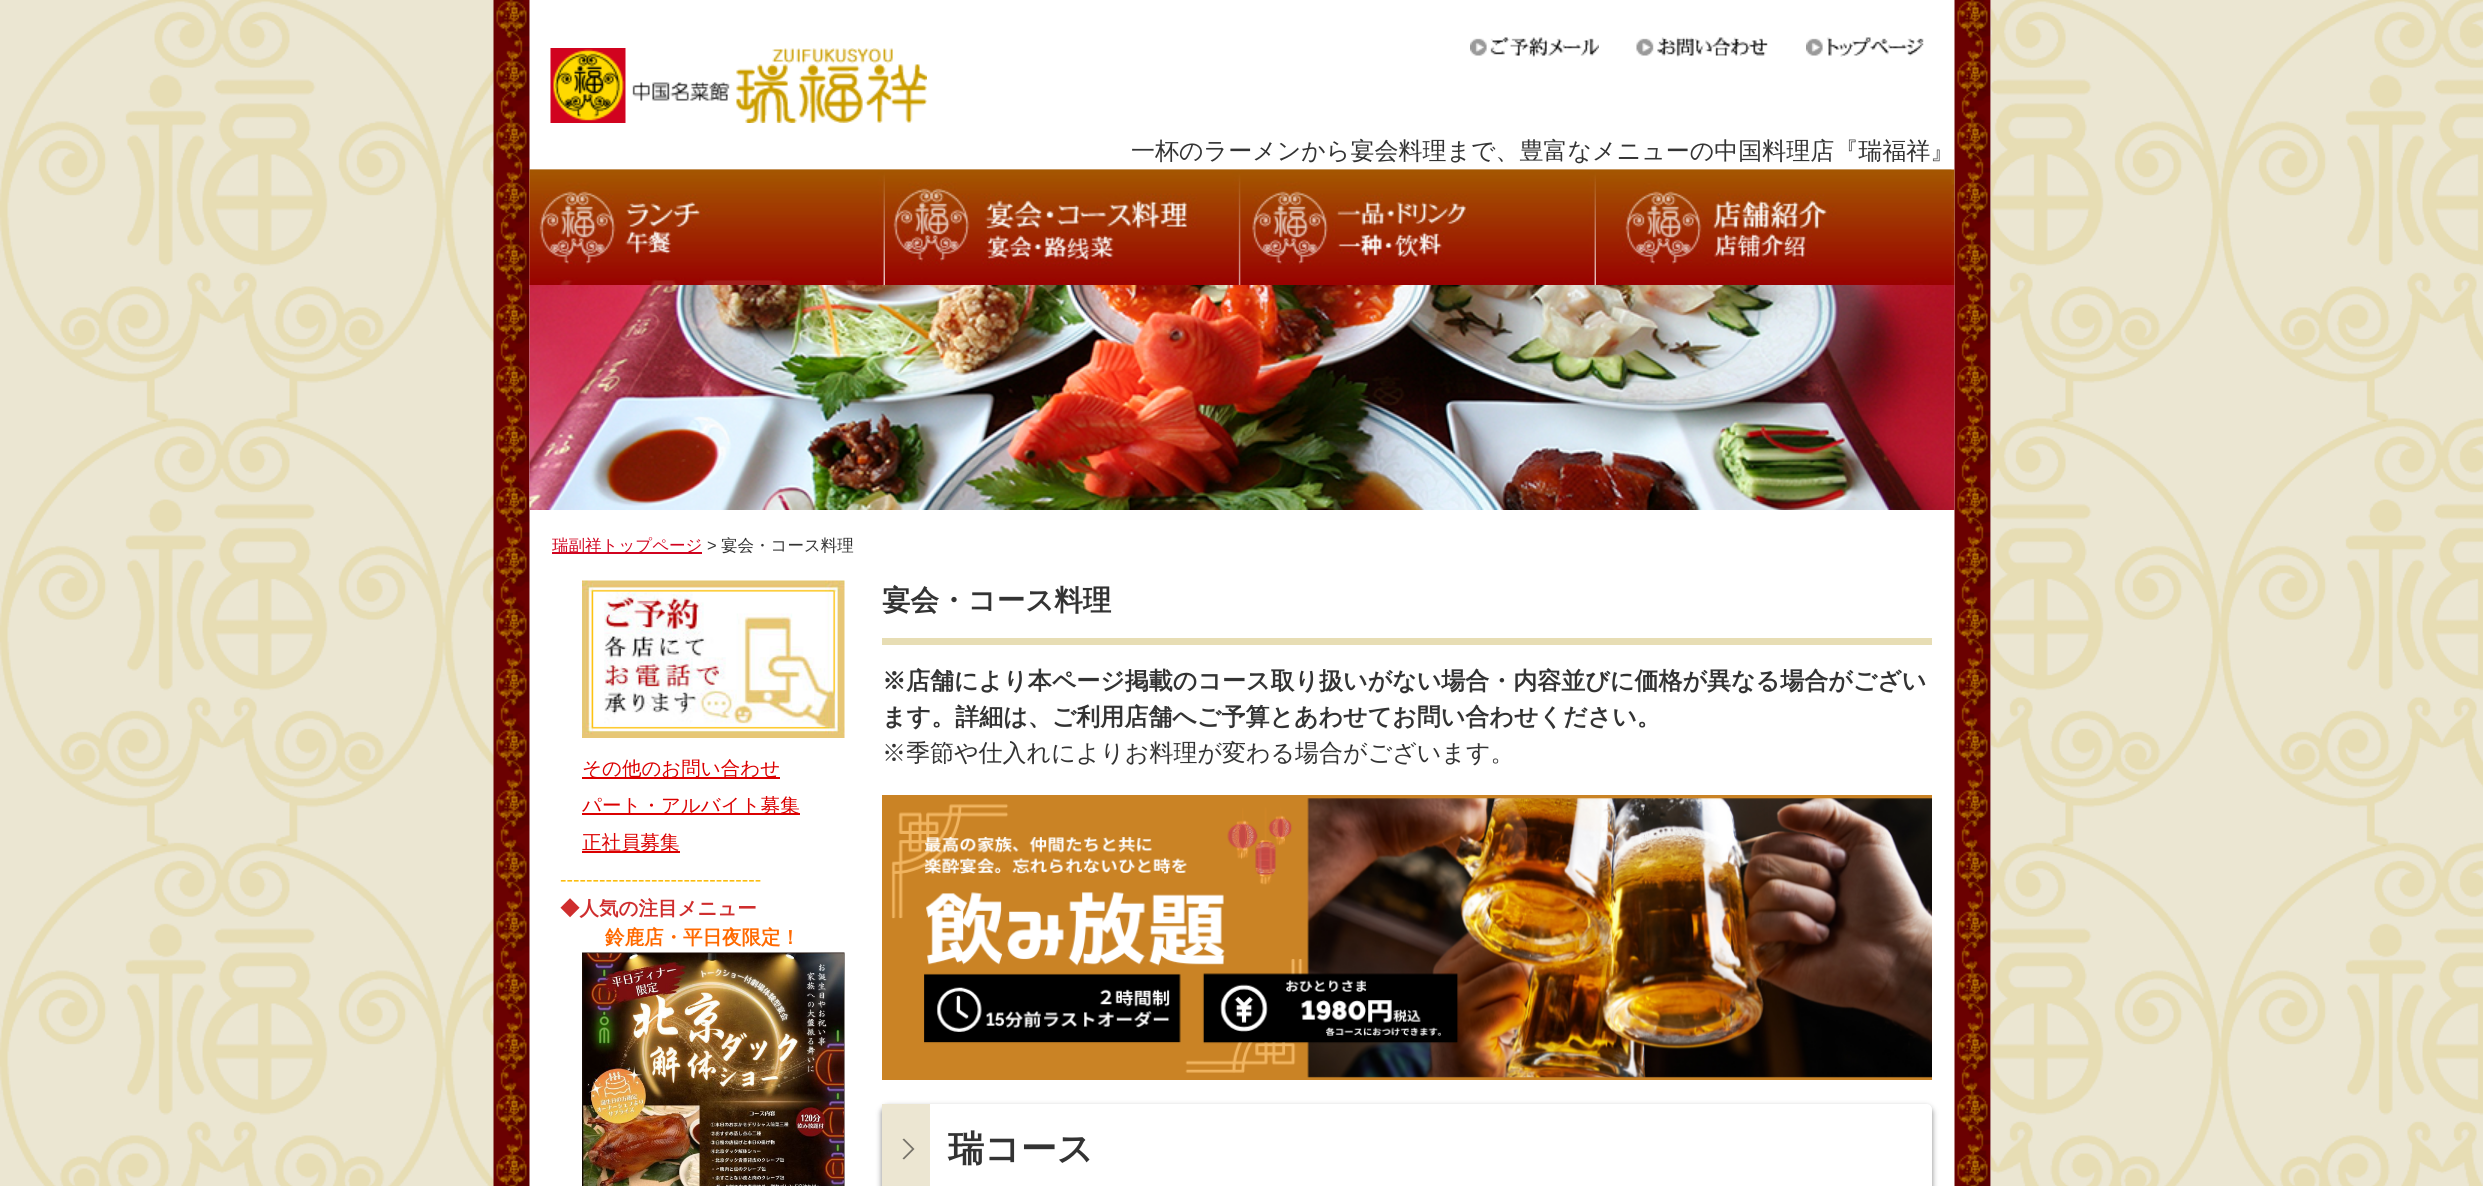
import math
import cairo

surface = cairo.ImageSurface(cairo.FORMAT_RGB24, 2483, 1186)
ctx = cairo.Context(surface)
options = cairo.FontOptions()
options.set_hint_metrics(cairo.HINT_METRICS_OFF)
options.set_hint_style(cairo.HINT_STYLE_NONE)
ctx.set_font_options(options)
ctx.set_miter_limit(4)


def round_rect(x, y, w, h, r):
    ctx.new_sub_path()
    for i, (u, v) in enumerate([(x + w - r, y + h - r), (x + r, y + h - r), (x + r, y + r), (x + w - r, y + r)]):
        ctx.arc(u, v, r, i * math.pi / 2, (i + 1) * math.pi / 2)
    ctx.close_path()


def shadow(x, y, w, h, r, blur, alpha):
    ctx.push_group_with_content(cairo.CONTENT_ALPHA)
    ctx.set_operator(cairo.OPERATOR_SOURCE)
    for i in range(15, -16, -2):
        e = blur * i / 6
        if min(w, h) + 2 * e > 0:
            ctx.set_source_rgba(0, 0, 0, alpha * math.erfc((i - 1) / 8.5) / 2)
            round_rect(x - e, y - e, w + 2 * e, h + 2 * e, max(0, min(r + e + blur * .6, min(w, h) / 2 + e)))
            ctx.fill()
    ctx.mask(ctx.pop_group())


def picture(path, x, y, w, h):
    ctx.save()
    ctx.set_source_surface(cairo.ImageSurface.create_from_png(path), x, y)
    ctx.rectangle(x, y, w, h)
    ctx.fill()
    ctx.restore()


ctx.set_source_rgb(1, 1, 1)
ctx.paint()
picture("img1.png", 0, 0, 2483, 1186)
ctx.set_source_rgb(1, 1, 1)
ctx.rectangle(1990, 0, 1, 1186)
ctx.fill()
picture("img2.png", 493, 0, 1498, 1186)
picture("img3.png", 550, 48, 377, 75)
picture("img4.png", 1470, 37, 129, 20)
picture("img5.png", 1636, 37, 132, 20)
picture("img6.png", 1806, 37, 118, 20)
ctx.select_font_face("WenQuanYi Zen Hei Medium")
ctx.set_font_size(24)
ctx.set_source_rgb(0.2, 0.2, 0.2)
ctx.move_to(1131, 159)
ctx.show_text("一杯のラーメンから宴会料理まで、豊富なメニューの中国料理店『瑞福祥』")
picture("img7.png", 529, 169, 1426, 116)
picture("img8.png", 529, 169, 356, 116)
picture("img9.png", 885, 169, 356, 116)
picture("img10.png", 1240, 169, 356, 116)
picture("img11.png", 1596, 169, 356, 116)
picture("img12.png", 529, 285, 1426, 225)
ctx.set_source_rgb(0.82, 0.012, 0.122)
ctx.rectangle(552, 552, 150, 2)
ctx.fill()
ctx.set_font_size(16.5)
ctx.move_to(552, 551)
ctx.show_text("瑞副祥トップページ")
ctx.select_font_face("Liberation Sans")
ctx.set_source_rgb(0.2, 0.2, 0.2)
ctx.move_to(707, 551)
ctx.show_text(">")
ctx.select_font_face("WenQuanYi Zen Hei Medium")
ctx.move_to(721, 551)
ctx.show_text("宴会・コース料理")
picture("img13.png", 582, 580, 263, 158)
ctx.set_source_rgb(0.859, 0, 0)
ctx.rectangle(582, 777, 198, 2)
ctx.fill()
ctx.set_font_size(19.5)
ctx.move_to(582, 775)
ctx.show_text("その他のお問い合わせ")
ctx.rectangle(582, 813, 218, 2)
ctx.fill()
ctx.move_to(582, 812)
ctx.show_text("パート・アルバイト募集")
ctx.rectangle(582, 851, 98, 2)
ctx.fill()
ctx.move_to(582, 849)
ctx.show_text("正社員募集")
ctx.select_font_face("Liberation Sans")
ctx.set_source_rgb(0.988, 0.725, 0)
ctx.move_to(560, 886)
ctx.show_text("-------------------------------")
ctx.select_font_face("WenQuanYi Zen Hei", cairo.FONT_SLANT_NORMAL, cairo.FONT_WEIGHT_BOLD)
ctx.set_source_rgb(0.812, 0.18, 0.18)
ctx.move_to(560, 915)
ctx.show_text("◆人気の注目メニュー")
ctx.set_source_rgb(1, 0.412, 0)
ctx.move_to(605, 944)
ctx.show_text("鈴鹿店・平日夜限定！")
picture("img14.png", 582, 952, 263, 234)
ctx.set_source_rgb(0.906, 0.867, 0.706)
ctx.rectangle(882, 638, 1050, 7)
ctx.fill()
ctx.set_font_size(28.5)
ctx.set_source_rgb(0.2, 0.2, 0.2)
ctx.move_to(882, 610)
ctx.show_text("宴会・コース料理")
ctx.set_font_size(24)
ctx.move_to(882, 689)
ctx.show_text("※店舗により本ページ掲載のコース取り扱いがない場合・内容並びに価格が異なる場合がござい")
ctx.move_to(882, 725)
ctx.show_text("ます。詳細は、ご利用店舗へご予算とあわせてお問い合わせください。")
ctx.select_font_face("WenQuanYi Zen Hei Medium")
ctx.move_to(882, 761)
ctx.show_text("※季節や仕入れによりお料理が変わる場合がございます。")
picture("img15.png", 882, 795, 1050, 285)
ctx.save()
ctx.set_fill_rule(cairo.FILL_RULE_EVEN_ODD)
ctx.new_path()
ctx.move_to(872, 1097)
ctx.line_to(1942, 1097)
ctx.line_to(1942, 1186)
ctx.line_to(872, 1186)
ctx.close_path()
ctx.move_to(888, 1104)
ctx.line_to(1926, 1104)
ctx.curve_to(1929.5, 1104, 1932, 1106.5, 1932, 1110)
ctx.line_to(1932, 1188)
ctx.curve_to(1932, 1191.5, 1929.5, 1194, 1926, 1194)
ctx.line_to(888, 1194)
ctx.curve_to(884.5, 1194, 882, 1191.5, 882, 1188)
ctx.line_to(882, 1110)
ctx.curve_to(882, 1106.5, 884.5, 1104, 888, 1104)
ctx.close_path()
ctx.clip()
ctx.set_source_rgb(0, 0, 0)
shadow(882, 1107, 1050, 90, 6, 3, 0.5)
ctx.restore()
ctx.set_source_rgb(0.922, 0.902, 0.824)
ctx.rectangle(882, 1104, 48, 82)
ctx.fill()
ctx.set_source_rgb(0.463, 0.451, 0.412)
ctx.new_path()
ctx.move_to(904, 1138.5)
ctx.line_to(914.5, 1149)
ctx.line_to(912, 1149)
ctx.line_to(902.5, 1139.5)
ctx.close_path()
ctx.move_to(914.5, 1149)
ctx.line_to(904, 1159.5)
ctx.line_to(902.5, 1158.5)
ctx.line_to(912, 1149)
ctx.close_path()
ctx.fill()
ctx.select_font_face("WenQuanYi Zen Hei", cairo.FONT_SLANT_NORMAL, cairo.FONT_WEIGHT_BOLD)
ctx.set_font_size(36)
ctx.set_source_rgb(0.2, 0.2, 0.2)
ctx.move_to(948, 1161)
ctx.show_text("瑞コース")
surface.write_to_png("page.png")
